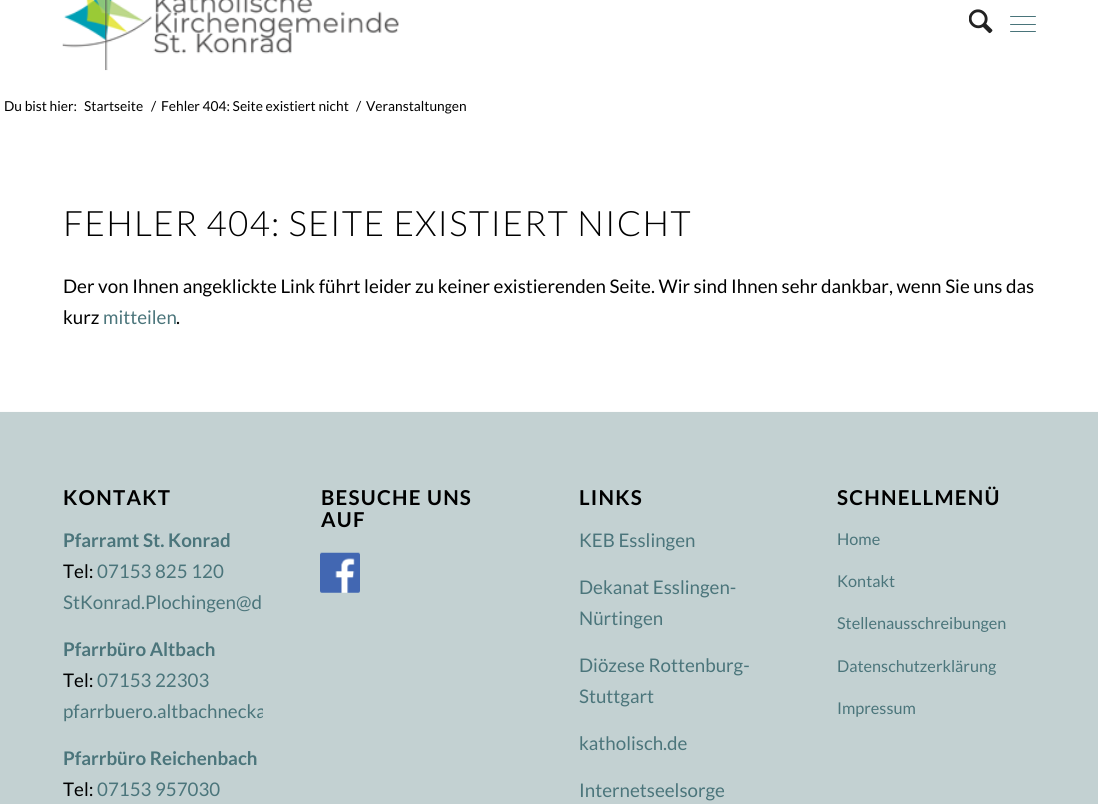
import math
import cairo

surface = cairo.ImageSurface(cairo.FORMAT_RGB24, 1098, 804)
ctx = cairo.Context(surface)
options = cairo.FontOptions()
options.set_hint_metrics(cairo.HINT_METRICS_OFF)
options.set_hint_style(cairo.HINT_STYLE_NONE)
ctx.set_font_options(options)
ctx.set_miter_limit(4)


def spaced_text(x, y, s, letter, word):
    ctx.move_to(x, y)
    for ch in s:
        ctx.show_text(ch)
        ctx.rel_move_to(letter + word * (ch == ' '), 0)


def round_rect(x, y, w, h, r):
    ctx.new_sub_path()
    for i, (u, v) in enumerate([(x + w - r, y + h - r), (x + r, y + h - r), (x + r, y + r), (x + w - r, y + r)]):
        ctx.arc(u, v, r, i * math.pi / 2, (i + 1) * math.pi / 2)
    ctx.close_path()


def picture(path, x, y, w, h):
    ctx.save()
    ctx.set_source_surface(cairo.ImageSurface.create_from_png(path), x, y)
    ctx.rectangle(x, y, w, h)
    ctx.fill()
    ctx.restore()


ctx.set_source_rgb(1, 1, 1)
ctx.paint()
picture("img1.png", 62, 0, 337, 71)
picture("img2.png", 969, 9, 24, 25)
ctx.set_source_rgb(0.286, 0.455, 0.478)
round_rect(1010, 24, 26, 1, 0.5)
ctx.fill()
round_rect(1010, 16, 26, 1, 0.5)
ctx.fill()
round_rect(1010, 31, 26, 1, 0.5)
ctx.fill()
ctx.select_font_face("Lato")
ctx.set_font_size(13.75)
ctx.set_source_rgb(0, 0, 0)
ctx.move_to(4, 111)
ctx.show_text("Du bist hier:")
ctx.move_to(84, 111)
ctx.show_text("Startseite")
ctx.move_to(151, 111)
ctx.show_text("/")
ctx.move_to(161, 111)
ctx.show_text("Fehler 404: Seite existiert nicht")
ctx.move_to(356, 111)
ctx.show_text("/")
ctx.move_to(366, 111)
ctx.show_text("Veranstaltungen")
ctx.select_font_face("Lato Light")
ctx.set_font_size(35)
spaced_text(63, 236, "FEHLER 404: SEITE EXISTIERT NICHT", 1.25, 0)
ctx.select_font_face("Lato")
ctx.set_font_size(18.75)
ctx.move_to(63, 293)
ctx.show_text("Der von Ihnen angeklickte Link führt leider zu keiner existierenden Seite. Wir sind Ihnen sehr dankbar, wenn Sie uns das")
ctx.move_to(63, 324)
ctx.show_text("kurz")
ctx.set_source_rgb(0.294, 0.459, 0.482)
ctx.move_to(103, 324)
ctx.show_text("mitteilen")
ctx.set_source_rgb(0, 0, 0)
ctx.move_to(176, 324)
ctx.show_text(".")
ctx.set_source_rgb(0.765, 0.82, 0.824)
ctx.rectangle(0, 412, 1098, 392)
ctx.fill()
ctx.set_source_rgb(0.988, 0.988, 0.988)
ctx.rectangle(0, 411, 1098, 1)
ctx.fill()
ctx.select_font_face("Lato", cairo.FONT_SLANT_NORMAL, cairo.FONT_WEIGHT_BOLD)
ctx.set_font_size(20.5)
ctx.set_source_rgb(0, 0, 0)
spaced_text(63, 505, "KONTAKT", 1.25, 0)
ctx.set_font_size(18.75)
ctx.set_source_rgb(0.294, 0.459, 0.482)
ctx.move_to(63, 547)
ctx.show_text("Pfarramt St. Konrad")
ctx.select_font_face("Lato")
ctx.set_source_rgb(0, 0, 0)
ctx.move_to(63, 578)
ctx.show_text("Tel:")
ctx.set_source_rgb(0.294, 0.459, 0.482)
ctx.move_to(97, 578)
ctx.show_text("07153 825 120")
ctx.move_to(63, 609)
ctx.show_text("StKonrad.Plochingen@d")
ctx.select_font_face("Lato", cairo.FONT_SLANT_NORMAL, cairo.FONT_WEIGHT_BOLD)
ctx.move_to(63, 656)
ctx.show_text("Pfarrbüro Altbach")
ctx.select_font_face("Lato")
ctx.set_source_rgb(0, 0, 0)
ctx.move_to(63, 687)
ctx.show_text("Tel:")
ctx.set_source_rgb(0.294, 0.459, 0.482)
ctx.move_to(97, 687)
ctx.show_text("07153 22303")
ctx.save()
ctx.rectangle(63, 469, 200, 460)
ctx.clip()
ctx.move_to(63, 718)
ctx.show_text("pfarrbuero.altbachnecka")
ctx.restore()
ctx.select_font_face("Lato", cairo.FONT_SLANT_NORMAL, cairo.FONT_WEIGHT_BOLD)
ctx.move_to(63, 765)
ctx.show_text("Pfarrbüro Reichenbach")
ctx.select_font_face("Lato")
ctx.set_source_rgb(0, 0, 0)
ctx.move_to(63, 796)
ctx.show_text("Tel:")
ctx.set_source_rgb(0.294, 0.459, 0.482)
ctx.move_to(97, 796)
ctx.show_text("07153 957030")
ctx.select_font_face("Lato", cairo.FONT_SLANT_NORMAL, cairo.FONT_WEIGHT_BOLD)
ctx.set_font_size(20.5)
ctx.set_source_rgb(0, 0, 0)
spaced_text(321, 505, "BESUCHE UNS", 1.25, 0)
spaced_text(321, 527, "AUF", 1.25, 0)
picture("img3.png", 320, 552, 40, 41)
spaced_text(579, 505, "LINKS", 1.25, 0)
ctx.select_font_face("Lato")
ctx.set_font_size(18.75)
ctx.set_source_rgb(0.294, 0.459, 0.482)
ctx.move_to(579, 547)
ctx.show_text("KEB Esslingen")
ctx.move_to(579, 594)
ctx.show_text("Dekanat Esslingen-")
ctx.move_to(579, 625)
ctx.show_text("Nürtingen")
ctx.move_to(579, 672)
ctx.show_text("Diözese Rottenburg-")
ctx.move_to(579, 703)
ctx.show_text("Stuttgart")
ctx.move_to(579, 750)
ctx.show_text("katholisch.de")
ctx.move_to(579, 797)
ctx.show_text("Internetseelsorge")
ctx.select_font_face("Lato", cairo.FONT_SLANT_NORMAL, cairo.FONT_WEIGHT_BOLD)
ctx.set_font_size(20.5)
ctx.set_source_rgb(0, 0, 0)
spaced_text(837, 505, "SCHNELLMENÜ", 1.25, 0)
ctx.select_font_face("Lato")
ctx.set_font_size(16.25)
ctx.set_source_rgb(0.294, 0.459, 0.482)
ctx.move_to(837, 545)
ctx.show_text("Home")
ctx.move_to(837, 587)
ctx.show_text("Kontakt")
ctx.move_to(837, 629)
ctx.show_text("Stellenausschreibungen")
ctx.move_to(837, 672)
ctx.show_text("Datenschutzerklärung")
ctx.move_to(837, 714)
ctx.show_text("Impressum")
surface.write_to_png("page.png")
